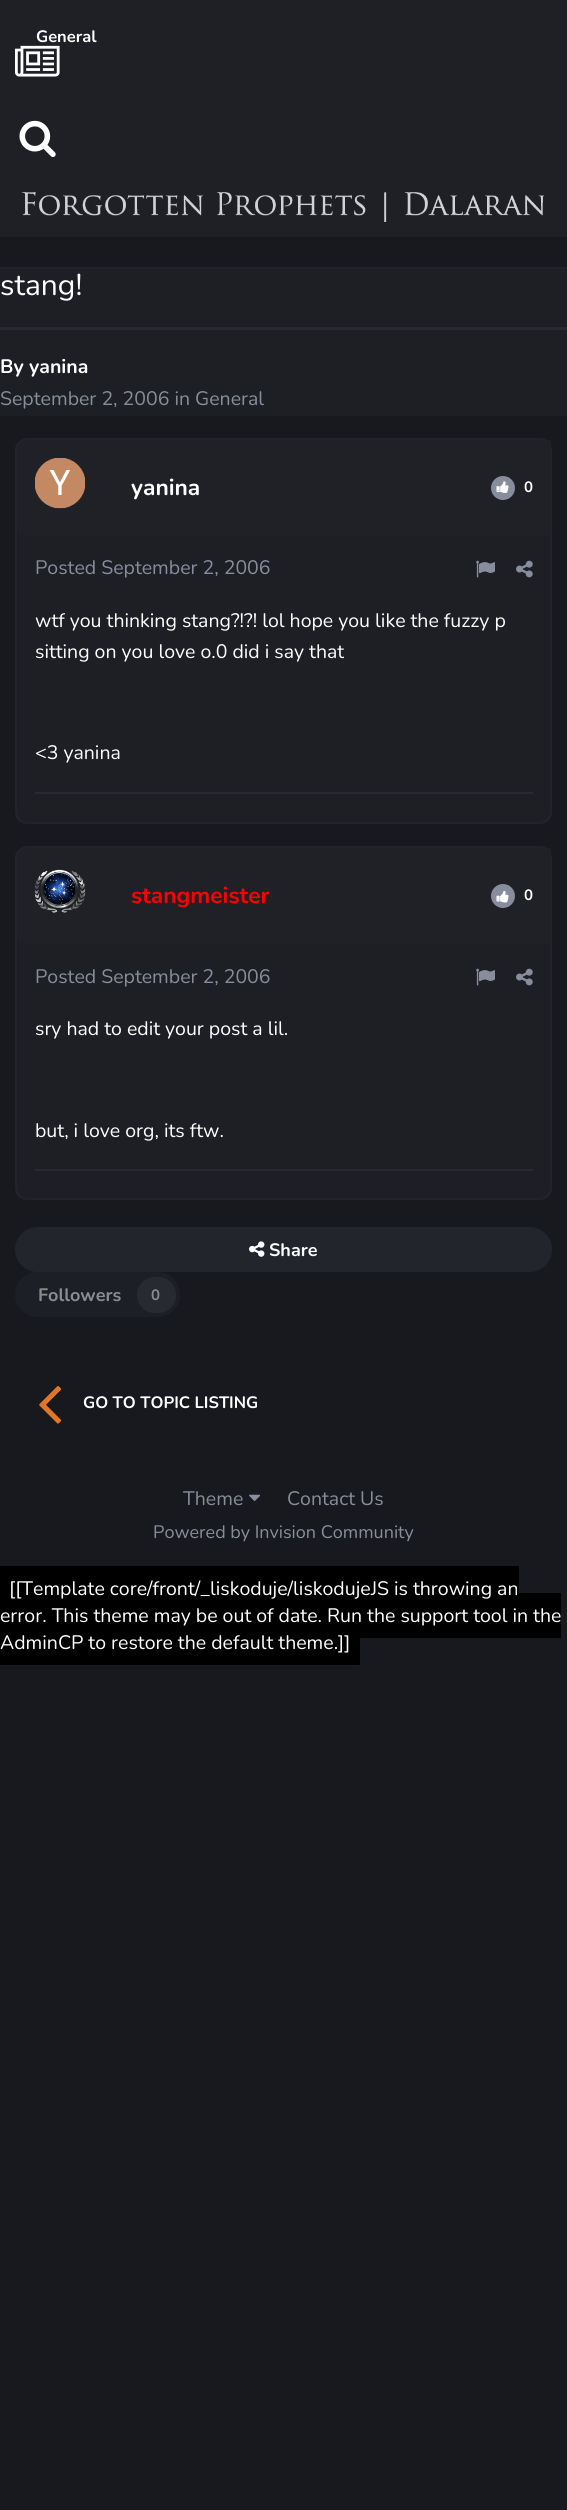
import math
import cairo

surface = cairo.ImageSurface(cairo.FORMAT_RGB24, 567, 2510)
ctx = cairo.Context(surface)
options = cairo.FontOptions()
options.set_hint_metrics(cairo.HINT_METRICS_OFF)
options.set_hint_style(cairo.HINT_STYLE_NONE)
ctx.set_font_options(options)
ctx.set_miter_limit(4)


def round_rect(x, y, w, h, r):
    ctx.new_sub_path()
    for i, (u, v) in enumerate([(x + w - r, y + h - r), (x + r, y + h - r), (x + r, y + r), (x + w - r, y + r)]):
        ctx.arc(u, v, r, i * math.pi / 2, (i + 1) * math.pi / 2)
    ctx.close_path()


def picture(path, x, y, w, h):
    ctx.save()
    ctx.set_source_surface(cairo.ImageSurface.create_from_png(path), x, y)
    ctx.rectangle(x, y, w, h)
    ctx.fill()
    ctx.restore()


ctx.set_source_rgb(0.09, 0.098, 0.122)
ctx.paint()
ctx.set_source_rgb(0.118, 0.125, 0.149)
ctx.rectangle(0, 0, 567, 237)
ctx.fill()
ctx.select_font_face("Nunito", cairo.FONT_SLANT_NORMAL, cairo.FONT_WEIGHT_BOLD)
ctx.set_font_size(16.5)
ctx.set_source_rgb(1, 1, 1)
ctx.move_to(36, 42)
ctx.show_text("General")
picture("img1.png", 15, 45, 45, 32)
picture("img2.png", 19, 120, 37, 37)
picture("img3.png", 22, 192, 522, 30)
ctx.set_source_rgb(0.114, 0.122, 0.145)
ctx.rectangle(0, 269, 567, 147)
ctx.fill()
ctx.set_source_rgb(0.133, 0.141, 0.169)
ctx.rectangle(0, 267, 567, 2)
ctx.fill()
ctx.select_font_face("Nunito")
ctx.set_font_size(30)
ctx.set_source_rgb(1, 1, 1)
ctx.move_to(0, 295)
ctx.show_text("stang!")
ctx.set_source_rgb(0.157, 0.165, 0.192)
ctx.rectangle(0, 327, 567, 3)
ctx.fill()
ctx.select_font_face("Nunito", cairo.FONT_SLANT_NORMAL, cairo.FONT_WEIGHT_BOLD)
ctx.set_font_size(19.5)
ctx.set_source_rgb(1, 1, 1)
ctx.move_to(0, 373)
ctx.show_text("By yanina")
ctx.select_font_face("Nunito")
ctx.set_source_rgb(0.533, 0.553, 0.616)
ctx.move_to(0, 405)
ctx.show_text("September 2, 2006 in General")
ctx.set_source_rgb(0.114, 0.122, 0.145)
round_rect(16, 439, 535, 384, 11)
ctx.fill_preserve()
ctx.set_source_rgb(0.133, 0.141, 0.169)
ctx.stroke()
ctx.set_source_rgb(0.125, 0.129, 0.153)
ctx.new_path()
ctx.move_to(28, 440)
ctx.line_to(551, 440)
ctx.line_to(551, 536)
ctx.line_to(28, 536)
ctx.curve_to(22, 536, 17, 531, 17, 525)
ctx.line_to(17, 451)
ctx.curve_to(17, 445, 22, 440, 28, 440)
ctx.close_path()
ctx.fill()
picture("img4.png", 35, 458, 51, 51)
ctx.select_font_face("Nunito", cairo.FONT_SLANT_NORMAL, cairo.FONT_WEIGHT_BOLD)
ctx.set_font_size(22.75)
ctx.set_source_rgb(1, 1, 1)
ctx.move_to(131, 495)
ctx.show_text("yanina")
ctx.set_source_rgb(0.533, 0.553, 0.616)
ctx.new_path()
ctx.arc(503, 488, 12, 0, 2 * math.pi)
ctx.fill()
picture("img5.png", 496, 481, 13, 12)
ctx.set_font_size(15)
ctx.set_source_rgb(1, 1, 1)
ctx.move_to(524, 492)
ctx.show_text("0")
ctx.select_font_face("Nunito")
ctx.set_font_size(19.5)
ctx.set_source_rgb(0.533, 0.553, 0.616)
ctx.move_to(35, 574)
ctx.show_text("Posted September 2, 2006")
picture("img6.png", 476, 560, 19, 18)
picture("img7.png", 516, 560, 17, 18)
ctx.set_source_rgb(1, 1, 1)
ctx.move_to(35, 627)
ctx.show_text("wtf you thinking stang?!?! lol hope you like the fuzzy p")
ctx.move_to(35, 658)
ctx.show_text("sitting on you love o.0 did i say that")
ctx.move_to(35, 759)
ctx.show_text("<3 yanina")
ctx.set_source_rgb(0.157, 0.165, 0.192)
ctx.rectangle(35, 792, 498, 2)
ctx.fill()
ctx.set_source_rgb(0.114, 0.122, 0.145)
round_rect(16, 847, 535, 352, 11)
ctx.fill_preserve()
ctx.set_source_rgb(0.133, 0.141, 0.169)
ctx.stroke()
ctx.set_source_rgb(0.125, 0.129, 0.153)
ctx.new_path()
ctx.move_to(28, 848)
ctx.line_to(551, 848)
ctx.line_to(551, 944)
ctx.line_to(28, 944)
ctx.curve_to(22, 944, 17, 939, 17, 933)
ctx.line_to(17, 859)
ctx.curve_to(17, 853, 22, 848, 28, 848)
ctx.close_path()
ctx.fill()
picture("img8.png", 34, 869, 52, 44)
ctx.select_font_face("Nunito", cairo.FONT_SLANT_NORMAL, cairo.FONT_WEIGHT_BOLD)
ctx.set_font_size(22.75)
ctx.set_source_rgb(1, 0, 0)
ctx.move_to(131, 903)
ctx.show_text("stangmeister")
ctx.set_source_rgb(0.533, 0.553, 0.616)
ctx.new_path()
ctx.arc(503, 896, 12, 0, 2 * math.pi)
ctx.fill()
picture("img9.png", 496, 890, 13, 13)
ctx.set_font_size(15)
ctx.set_source_rgb(1, 1, 1)
ctx.move_to(524, 900)
ctx.show_text("0")
ctx.select_font_face("Nunito")
ctx.set_font_size(19.5)
ctx.set_source_rgb(0.533, 0.553, 0.616)
ctx.move_to(35, 983)
ctx.show_text("Posted September 2, 2006")
picture("img6.png", 476, 968, 19, 18)
picture("img7.png", 516, 968, 17, 18)
ctx.set_source_rgb(1, 1, 1)
ctx.move_to(35, 1035)
ctx.show_text("sry had to edit your post a lil.")
ctx.move_to(35, 1137)
ctx.show_text("but, i love org, its ftw.")
ctx.set_source_rgb(0.157, 0.165, 0.192)
ctx.rectangle(35, 1169, 498, 2)
ctx.fill()
ctx.set_source_rgb(0.137, 0.145, 0.173)
round_rect(15, 1227, 537, 45, 22.5)
ctx.fill()
picture("img10.png", 249, 1241, 16, 16)
ctx.select_font_face("Nunito", cairo.FONT_SLANT_NORMAL, cairo.FONT_WEIGHT_BOLD)
ctx.set_font_size(18)
ctx.set_source_rgb(1, 1, 1)
ctx.move_to(269, 1256)
ctx.show_text("Share")
ctx.set_source_rgb(0.114, 0.122, 0.149)
round_rect(15, 1272, 165, 45, 22.5)
ctx.fill()
ctx.set_source_rgb(0.545, 0.549, 0.561)
ctx.move_to(38, 1301)
ctx.show_text("Followers")
ctx.set_source_rgb(0.157, 0.165, 0.192)
round_rect(137, 1277, 39, 36, 18)
ctx.fill()
ctx.set_font_size(15)
ctx.set_source_rgb(0.545, 0.549, 0.561)
ctx.move_to(151, 1300)
ctx.show_text("0")
picture("img11.png", 39, 1386, 23, 38)
ctx.set_font_size(16.5)
ctx.set_source_rgb(1, 1, 1)
ctx.move_to(83, 1408)
ctx.show_text("GO TO TOPIC LISTING")
ctx.select_font_face("Nunito")
ctx.set_font_size(19.5)
ctx.set_source_rgb(0.533, 0.553, 0.616)
ctx.move_to(183, 1505)
ctx.show_text("Theme")
picture("img12.png", 249, 1494, 12, 7)
ctx.move_to(287, 1505)
ctx.show_text("Contact Us")
ctx.set_font_size(18)
ctx.move_to(153, 1538)
ctx.show_text("Powered by Invision Community")
ctx.set_source_rgb(0, 0, 0)
ctx.rectangle(0, 1566, 519, 27)
ctx.fill()
ctx.rectangle(0, 1593, 561, 45)
ctx.fill()
ctx.set_font_size(19.5)
ctx.set_source_rgb(1, 1, 1)
ctx.move_to(9, 1595)
ctx.show_text("[[Template core/front/_liskoduje/liskodujeJS is throwing an")
ctx.move_to(0, 1622)
ctx.show_text("error. This theme may be out of date. Run the support tool in the")
ctx.set_source_rgb(0, 0, 0)
ctx.rectangle(0, 1638, 360, 27)
ctx.fill()
ctx.set_source_rgb(1, 1, 1)
ctx.move_to(0, 1649)
ctx.show_text("AdminCP to restore the default theme.]]")
surface.write_to_png("page.png")
